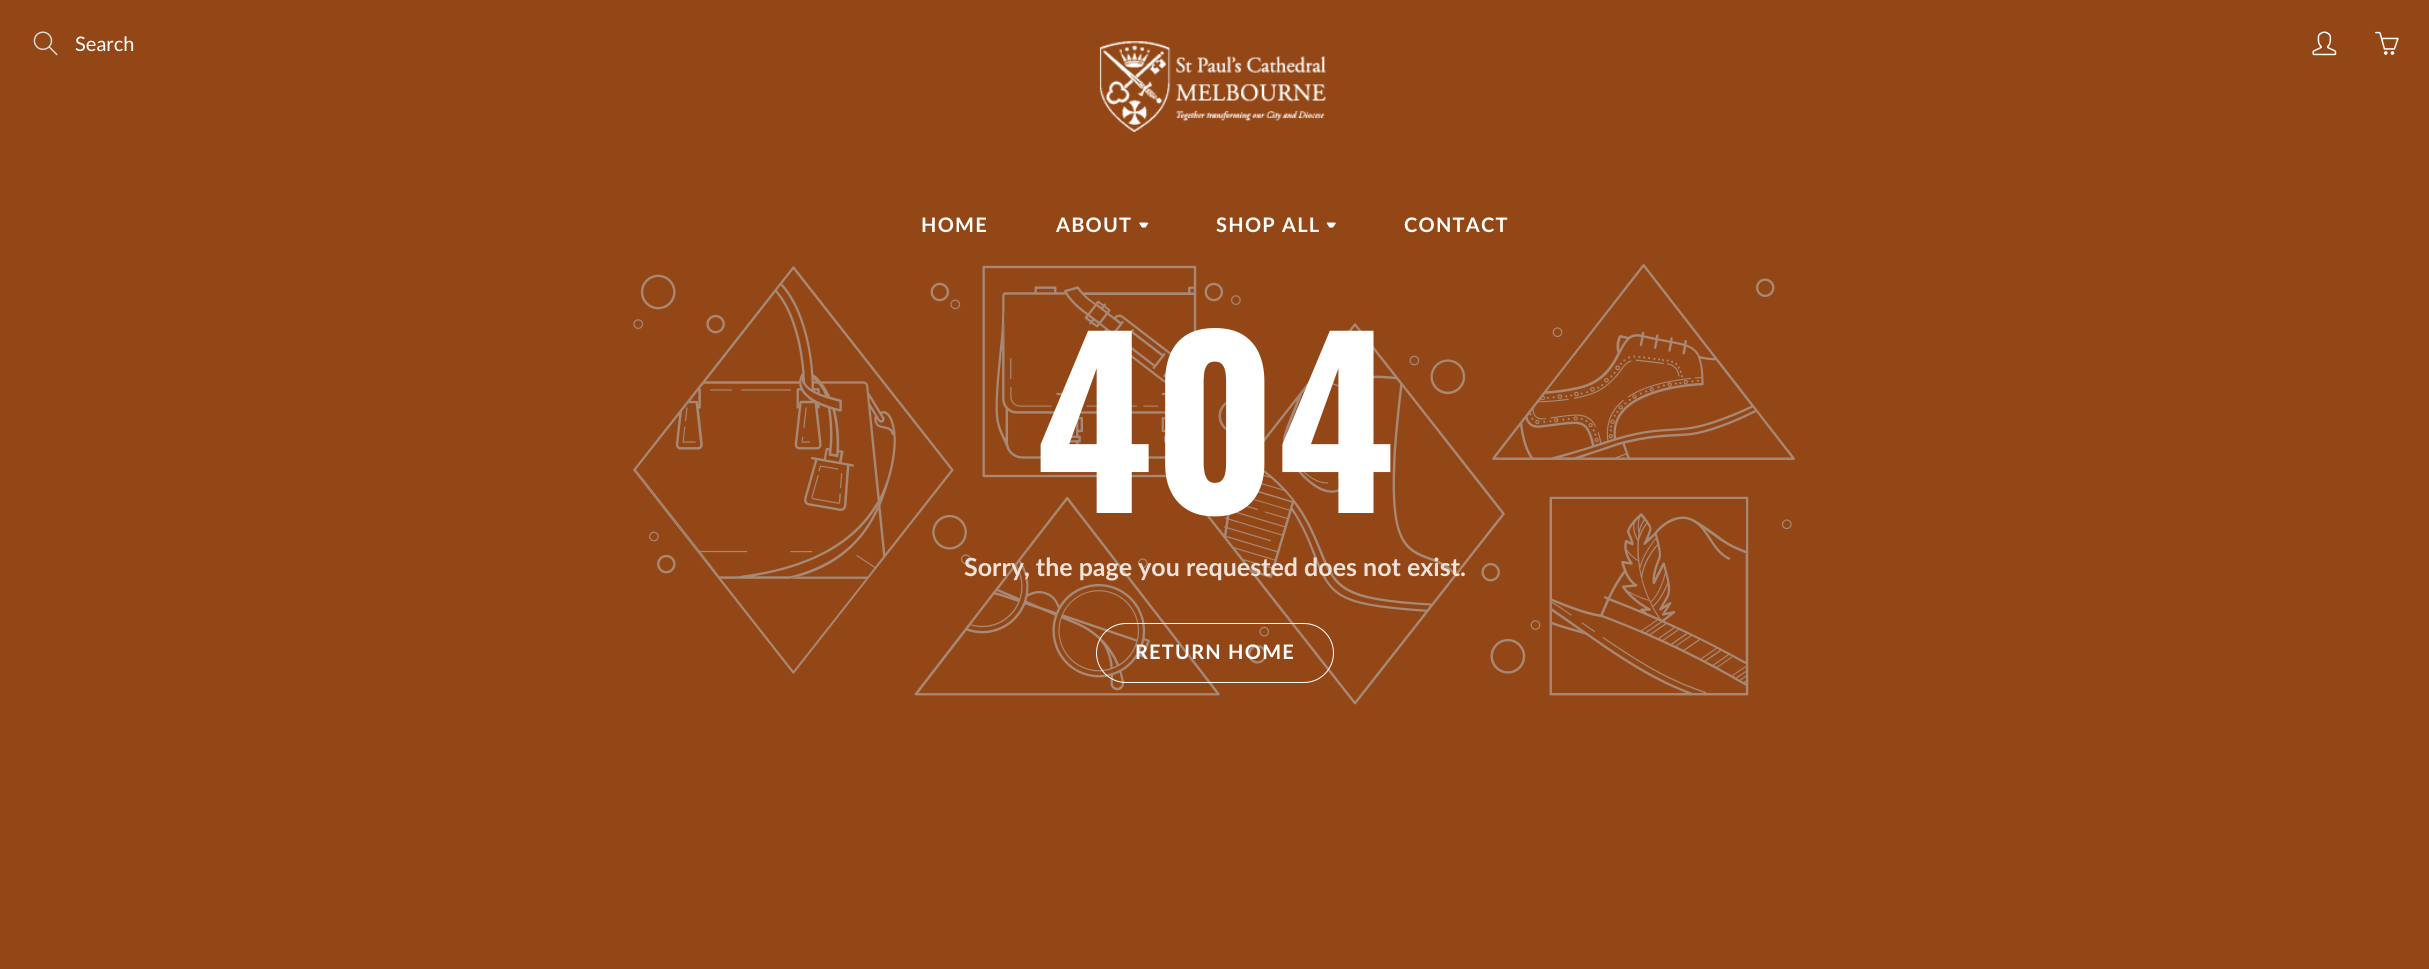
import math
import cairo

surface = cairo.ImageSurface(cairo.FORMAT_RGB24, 2429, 969)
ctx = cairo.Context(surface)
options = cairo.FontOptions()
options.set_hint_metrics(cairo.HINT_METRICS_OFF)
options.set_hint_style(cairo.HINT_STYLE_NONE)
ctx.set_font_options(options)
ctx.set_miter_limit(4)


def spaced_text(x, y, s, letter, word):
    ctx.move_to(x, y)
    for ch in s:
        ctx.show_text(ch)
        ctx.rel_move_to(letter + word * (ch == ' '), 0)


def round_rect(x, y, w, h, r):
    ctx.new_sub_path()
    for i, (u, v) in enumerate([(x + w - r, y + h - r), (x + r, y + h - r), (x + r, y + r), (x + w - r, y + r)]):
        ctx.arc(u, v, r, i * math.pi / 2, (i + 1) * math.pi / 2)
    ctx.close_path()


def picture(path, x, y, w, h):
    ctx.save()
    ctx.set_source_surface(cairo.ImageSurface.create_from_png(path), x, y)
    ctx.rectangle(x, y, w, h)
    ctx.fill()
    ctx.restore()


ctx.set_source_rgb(0.58, 0.278, 0.086)
ctx.paint()
picture("img1.png", 33, 31, 25, 25)
ctx.select_font_face("Lato")
ctx.set_font_size(20)
ctx.set_source_rgb(1, 1, 1)
ctx.move_to(75, 51)
ctx.show_text("Search")
picture("img2.png", 1099, 41, 227, 92)
picture("img3.png", 2312, 31, 25, 25)
picture("img4.png", 2375, 31, 24, 24)
ctx.select_font_face("Lato", cairo.FONT_SLANT_NORMAL, cairo.FONT_WEIGHT_BOLD)
spaced_text(921, 232, "HOME", 1.25, 0)
spaced_text(1056, 232, "ABOUT", 1.25, 0)
ctx.new_path()
ctx.move_to(1140, 222.5)
ctx.line_to(1139, 223)
ctx.line_to(1142, 227.5)
ctx.line_to(1145.5, 227.5)
ctx.line_to(1148.5, 223)
ctx.line_to(1146, 222.5)
ctx.close_path()
ctx.fill()
spaced_text(1216, 232, "SHOP ALL", 1.25, 0)
ctx.new_path()
ctx.move_to(1327.5, 222.5)
ctx.line_to(1326.5, 223)
ctx.line_to(1329.5, 227.5)
ctx.line_to(1333, 227.5)
ctx.line_to(1336, 223)
ctx.line_to(1334, 222.5)
ctx.close_path()
ctx.fill()
spaced_text(1404, 232, "CONTACT", 1.25, 0)
picture("img5.png", 633, 264, 1162, 441)
ctx.select_font_face("Oswald", cairo.FONT_SLANT_NORMAL, cairo.FONT_WEIGHT_BOLD)
ctx.set_font_size(225)
ctx.move_to(1035, 513)
ctx.show_text("404")
ctx.select_font_face("Lato", cairo.FONT_SLANT_NORMAL, cairo.FONT_WEIGHT_BOLD)
ctx.set_font_size(25)
ctx.set_source_rgb(0.933, 0.886, 0.859)
ctx.move_to(964, 576)
ctx.show_text("Sorry, the page you requested does not exist.")
round_rect(1096.5, 623.5, 237, 59, 29.5)
ctx.set_source_rgb(1, 1, 1)
ctx.set_line_width(1)
ctx.stroke()
ctx.set_font_size(20)
spaced_text(1135, 659, "RETURN HOME", 1.25, 0)
surface.write_to_png("page.png")
